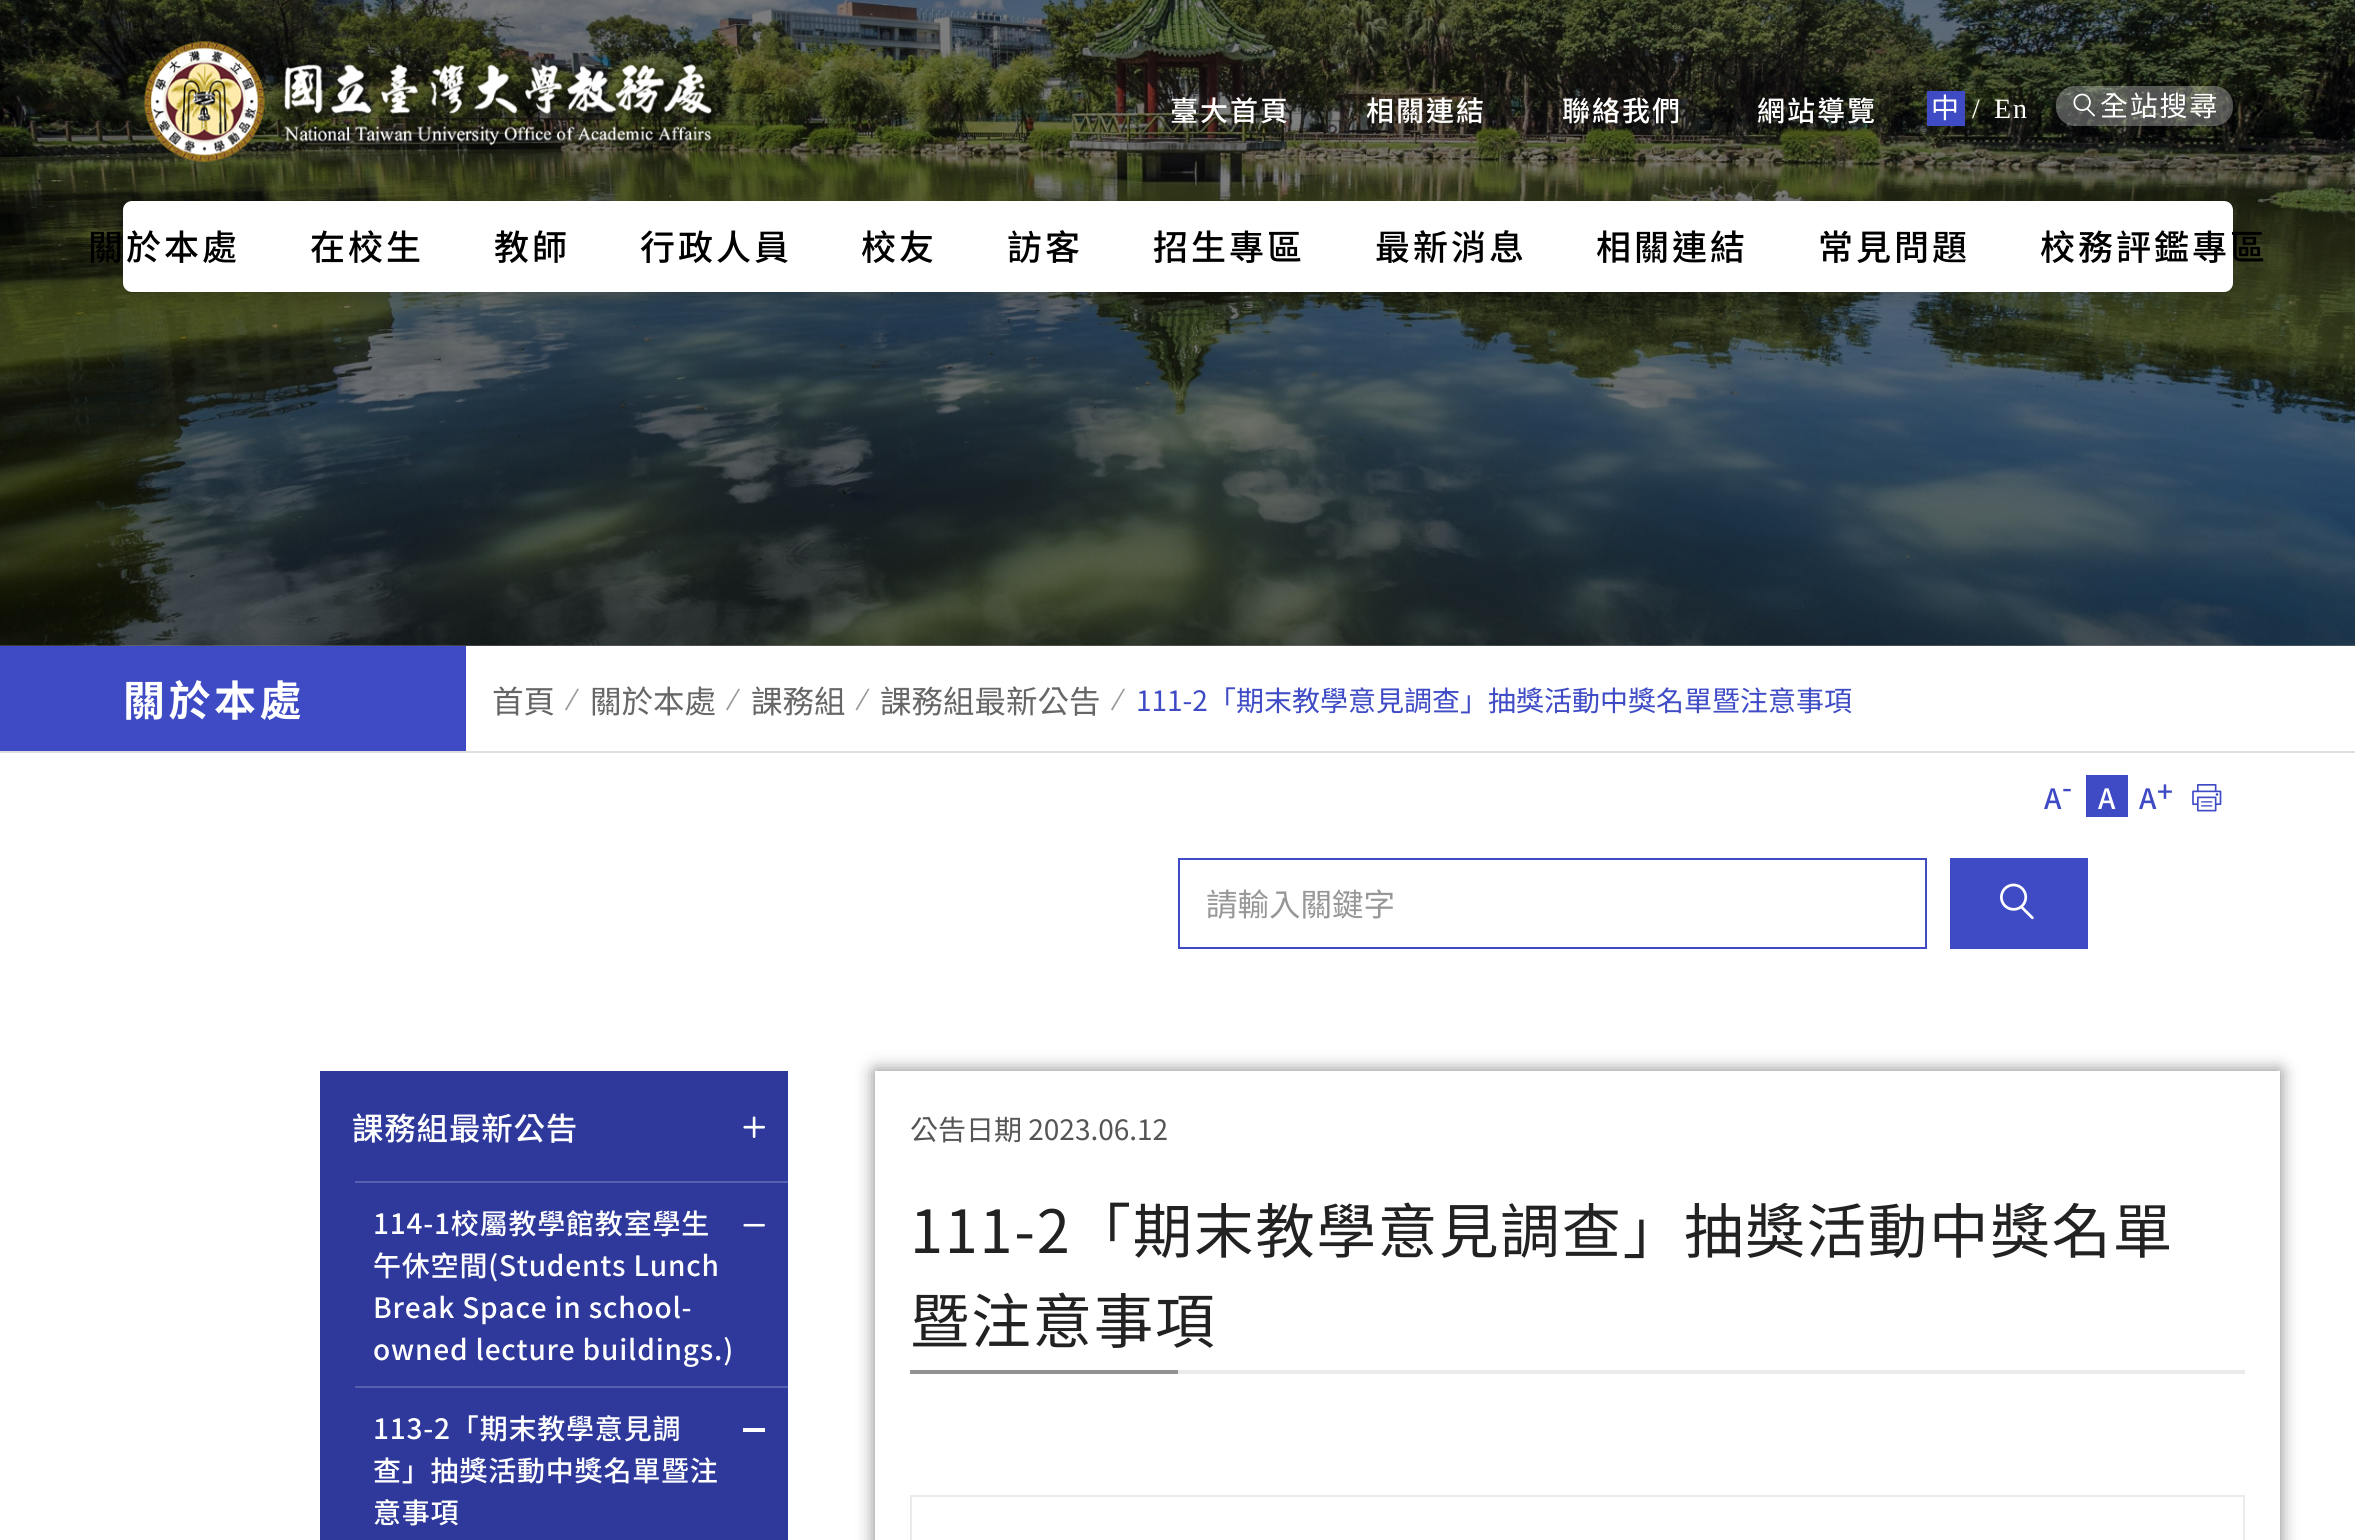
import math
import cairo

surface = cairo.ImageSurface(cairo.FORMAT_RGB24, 2355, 1540)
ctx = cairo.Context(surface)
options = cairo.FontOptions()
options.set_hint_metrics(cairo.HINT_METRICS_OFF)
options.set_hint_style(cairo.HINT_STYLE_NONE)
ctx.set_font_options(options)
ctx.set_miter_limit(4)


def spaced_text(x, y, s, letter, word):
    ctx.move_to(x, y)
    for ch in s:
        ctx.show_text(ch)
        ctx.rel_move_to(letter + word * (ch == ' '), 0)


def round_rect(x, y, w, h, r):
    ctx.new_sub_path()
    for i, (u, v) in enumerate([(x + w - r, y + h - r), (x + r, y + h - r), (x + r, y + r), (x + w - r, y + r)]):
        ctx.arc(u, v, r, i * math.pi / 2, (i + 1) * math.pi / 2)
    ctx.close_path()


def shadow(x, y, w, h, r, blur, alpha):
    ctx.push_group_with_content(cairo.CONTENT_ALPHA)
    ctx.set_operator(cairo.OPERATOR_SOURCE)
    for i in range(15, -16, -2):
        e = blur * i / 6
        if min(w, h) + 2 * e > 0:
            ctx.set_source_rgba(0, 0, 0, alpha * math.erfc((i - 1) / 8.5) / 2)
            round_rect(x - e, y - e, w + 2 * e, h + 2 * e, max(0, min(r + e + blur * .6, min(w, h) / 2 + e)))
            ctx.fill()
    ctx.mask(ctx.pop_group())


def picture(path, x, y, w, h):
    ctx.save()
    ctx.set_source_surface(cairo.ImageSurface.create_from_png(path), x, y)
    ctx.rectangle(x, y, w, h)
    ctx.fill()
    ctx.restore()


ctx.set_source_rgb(1, 1, 1)
ctx.paint()
picture("img2.png", 0, 645, 2355, 1)
picture("img1.png", 0, 0, 2355, 646)
picture("img3.png", 144, 41, 572, 122)
ctx.select_font_face("Noto Sans TC Medium")
ctx.set_font_size(28)
ctx.set_source_rgb(1, 1, 1)
spaced_text(1170, 121, "臺大首頁", 2, 0)
spaced_text(1366, 121, "相關連結", 2, 0)
spaced_text(1562, 121, "聯絡我們", 2, 0)
spaced_text(1757, 121, "網站導覽", 2, 0)
ctx.set_source_rgb(0.243, 0.294, 0.773)
ctx.rectangle(1927, 91, 38, 35)
ctx.fill()
ctx.select_font_face("Noto Sans CJK TC")
ctx.set_source_rgb(1, 1, 1)
spaced_text(1931, 118, "中", 2, 0)
ctx.select_font_face("Liberation Serif")
spaced_text(1972, 118, "/", 2, 0)
spaced_text(1994, 118, "En", 2, 0)
ctx.set_source_rgba(1, 1, 1, 0.3)
round_rect(2056, 86, 177, 40, 19)
ctx.fill()
picture("img4.png", 2073, 93, 22, 24)
ctx.select_font_face("Noto Sans CJK TC")
ctx.set_source_rgb(1, 1, 1)
spaced_text(2100, 116, "全站搜尋", 1.75, 0)
ctx.set_source_rgb(0, 0, 0)
shadow(123, 205, 2110, 91, 9, 11.5, 0.24)
ctx.set_source_rgb(1, 1, 1)
round_rect(123, 201, 2110, 91, 9)
ctx.fill()
ctx.select_font_face("Noto Sans TC Medium")
ctx.set_font_size(35)
ctx.set_source_rgb(0, 0, 0)
spaced_text(88, 260, "關於本處", 3, 0)
spaced_text(310, 260, "在校生", 3, 0)
spaced_text(494, 260, "教師", 3, 0)
spaced_text(640, 260, "行政人員", 3, 0)
spaced_text(861, 260, "校友", 3, 0)
spaced_text(1007, 260, "訪客", 3, 0)
spaced_text(1153, 260, "招生專區", 3, 0)
spaced_text(1375, 260, "最新消息", 3, 0)
spaced_text(1596, 260, "相關連結", 3, 0)
spaced_text(1818, 260, "常見問題", 3, 0)
spaced_text(2040, 260, "校務評鑑專區", 3, 0)
ctx.set_source_rgb(0.875, 0.875, 0.875)
ctx.rectangle(0, 751, 2355, 2)
ctx.fill()
ctx.set_source_rgb(0.243, 0.294, 0.773)
ctx.rectangle(0, 646, 466, 105)
ctx.fill()
ctx.select_font_face("Noto Sans TC", cairo.FONT_SLANT_NORMAL, cairo.FONT_WEIGHT_BOLD)
ctx.set_font_size(42)
ctx.set_source_rgb(1, 1, 1)
spaced_text(123, 716, "關於本處", 3.5, 0)
ctx.select_font_face("Noto Sans TC")
ctx.set_font_size(31.5)
ctx.set_source_rgb(0.4, 0.4, 0.4)
ctx.move_to(492, 713)
ctx.show_text("首頁")
ctx.set_source_rgb(0.6, 0.6, 0.6)
ctx.new_path()
ctx.move_to(565, 709.5)
ctx.line_to(577.5, 688.5)
ctx.line_to(579, 689)
ctx.line_to(566.5, 710.5)
ctx.close_path()
ctx.fill()
ctx.set_source_rgb(0.4, 0.4, 0.4)
ctx.move_to(590, 713)
ctx.show_text("關於本處")
ctx.set_source_rgb(0.6, 0.6, 0.6)
ctx.new_path()
ctx.move_to(726, 709.5)
ctx.line_to(738.5, 688.5)
ctx.line_to(740, 689)
ctx.line_to(727.5, 710.5)
ctx.close_path()
ctx.fill()
ctx.set_source_rgb(0.4, 0.4, 0.4)
ctx.move_to(751, 713)
ctx.show_text("課務組")
ctx.set_source_rgb(0.6, 0.6, 0.6)
ctx.new_path()
ctx.move_to(855.5, 709.5)
ctx.line_to(868, 688.5)
ctx.line_to(869.5, 689)
ctx.line_to(857, 710.5)
ctx.close_path()
ctx.fill()
ctx.set_source_rgb(0.4, 0.4, 0.4)
ctx.move_to(880, 713)
ctx.show_text("課務組最新公告")
ctx.set_source_rgb(0.6, 0.6, 0.6)
ctx.new_path()
ctx.move_to(1111, 709.5)
ctx.line_to(1123.5, 688.5)
ctx.line_to(1125, 689)
ctx.line_to(1112.5, 710.5)
ctx.close_path()
ctx.fill()
ctx.set_font_size(28)
ctx.set_source_rgb(0.243, 0.294, 0.773)
ctx.move_to(1136, 711)
ctx.show_text("111-2「期末教學意見調查」抽獎活動中獎名單暨注意事項")
ctx.select_font_face("Noto Sans TC Medium")
ctx.move_to(2044, 809)
ctx.show_text("A")
ctx.move_to(2062, 798)
ctx.show_text("-")
ctx.rectangle(2086, 775, 42, 42)
ctx.fill()
ctx.set_source_rgb(1, 1, 1)
ctx.move_to(2098, 809)
ctx.show_text("A")
ctx.set_source_rgb(0.243, 0.294, 0.773)
ctx.move_to(2139, 809)
ctx.show_text("A")
ctx.move_to(2157, 802)
ctx.show_text("+")
picture("img5.png", 2192, 784, 30, 28)
ctx.rectangle(1179, 859, 747, 89)
ctx.stroke()
ctx.select_font_face("Noto Sans TC")
ctx.set_font_size(31.5)
ctx.set_source_rgb(0.592, 0.592, 0.592)
ctx.move_to(1206, 916)
ctx.show_text("請輸入關鍵字")
ctx.set_source_rgb(0.243, 0.294, 0.773)
ctx.rectangle(1950, 858, 138, 91)
ctx.fill()
picture("img6.png", 2000, 883, 34, 37)
ctx.set_source_rgb(0.18, 0.224, 0.608)
ctx.rectangle(320, 1071, 468, 469)
ctx.fill()
ctx.select_font_face("Noto Sans TC Medium")
ctx.set_source_rgb(1, 1, 1)
spaced_text(352, 1140, "課務組最新公告", 0.8, 0)
picture("img7.png", 743, 1116, 23, 22)
ctx.set_source_rgb(0.345, 0.38, 0.686)
ctx.rectangle(355, 1181, 433, 2)
ctx.fill()
ctx.set_font_size(28)
ctx.set_source_rgb(1, 1, 1)
spaced_text(373, 1234, "114-1校屬教學館教室學生", 0.8, 0)
picture("img8.png", 743, 1223, 22, 4)
spaced_text(373, 1276, "午休空間(Students Lunch", 0.8, 0)
spaced_text(373, 1318, "Break Space in school-", 0.8, 0)
spaced_text(373, 1360, "owned lecture buildings.)", 0.8, 0)
ctx.set_source_rgb(0.345, 0.38, 0.686)
ctx.rectangle(355, 1386, 433, 2)
ctx.fill()
ctx.set_source_rgb(1, 1, 1)
spaced_text(373, 1439, "113-2「期末教學意見調", 0.8, 0)
ctx.rectangle(743, 1428, 22, 4)
ctx.fill()
spaced_text(373, 1481, "查」抽獎活動中獎名單暨注", 0.8, 0)
spaced_text(373, 1523, "意事項", 0.8, 0)
ctx.save()
ctx.set_fill_rule(cairo.FILL_RULE_EVEN_ODD)
ctx.new_path()
ctx.move_to(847, 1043)
ctx.line_to(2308, 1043)
ctx.line_to(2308, 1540)
ctx.line_to(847, 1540)
ctx.close_path()
ctx.move_to(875, 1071)
ctx.line_to(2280, 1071)
ctx.line_to(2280, 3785)
ctx.line_to(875, 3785)
ctx.close_path()
ctx.clip()
ctx.set_source_rgb(0, 0, 0)
shadow(875, 1071, 1405, 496, 0, 9, 0.5)
ctx.restore()
ctx.select_font_face("Noto Sans TC")
ctx.set_source_rgb(0.333, 0.333, 0.333)
ctx.move_to(910, 1140)
ctx.show_text("公告日期 2023.06.12")
ctx.set_source_rgb(0.918, 0.918, 0.918)
ctx.rectangle(1178, 1370, 1067, 4)
ctx.fill()
ctx.set_font_size(59.5)
ctx.set_source_rgb(0.133, 0.133, 0.133)
spaced_text(910, 1253, "111-2「期末教學意見調查」抽獎活動中獎名單", 1.75, 0)
spaced_text(910, 1343, "暨注意事項", 1.75, 0)
ctx.set_source_rgb(0.573, 0.573, 0.573)
ctx.rectangle(910, 1370, 268, 4)
ctx.fill()
ctx.rectangle(911, 1496, 1333, 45)
ctx.set_source_rgb(0.918, 0.918, 0.918)
ctx.stroke()
surface.write_to_png("page.png")
